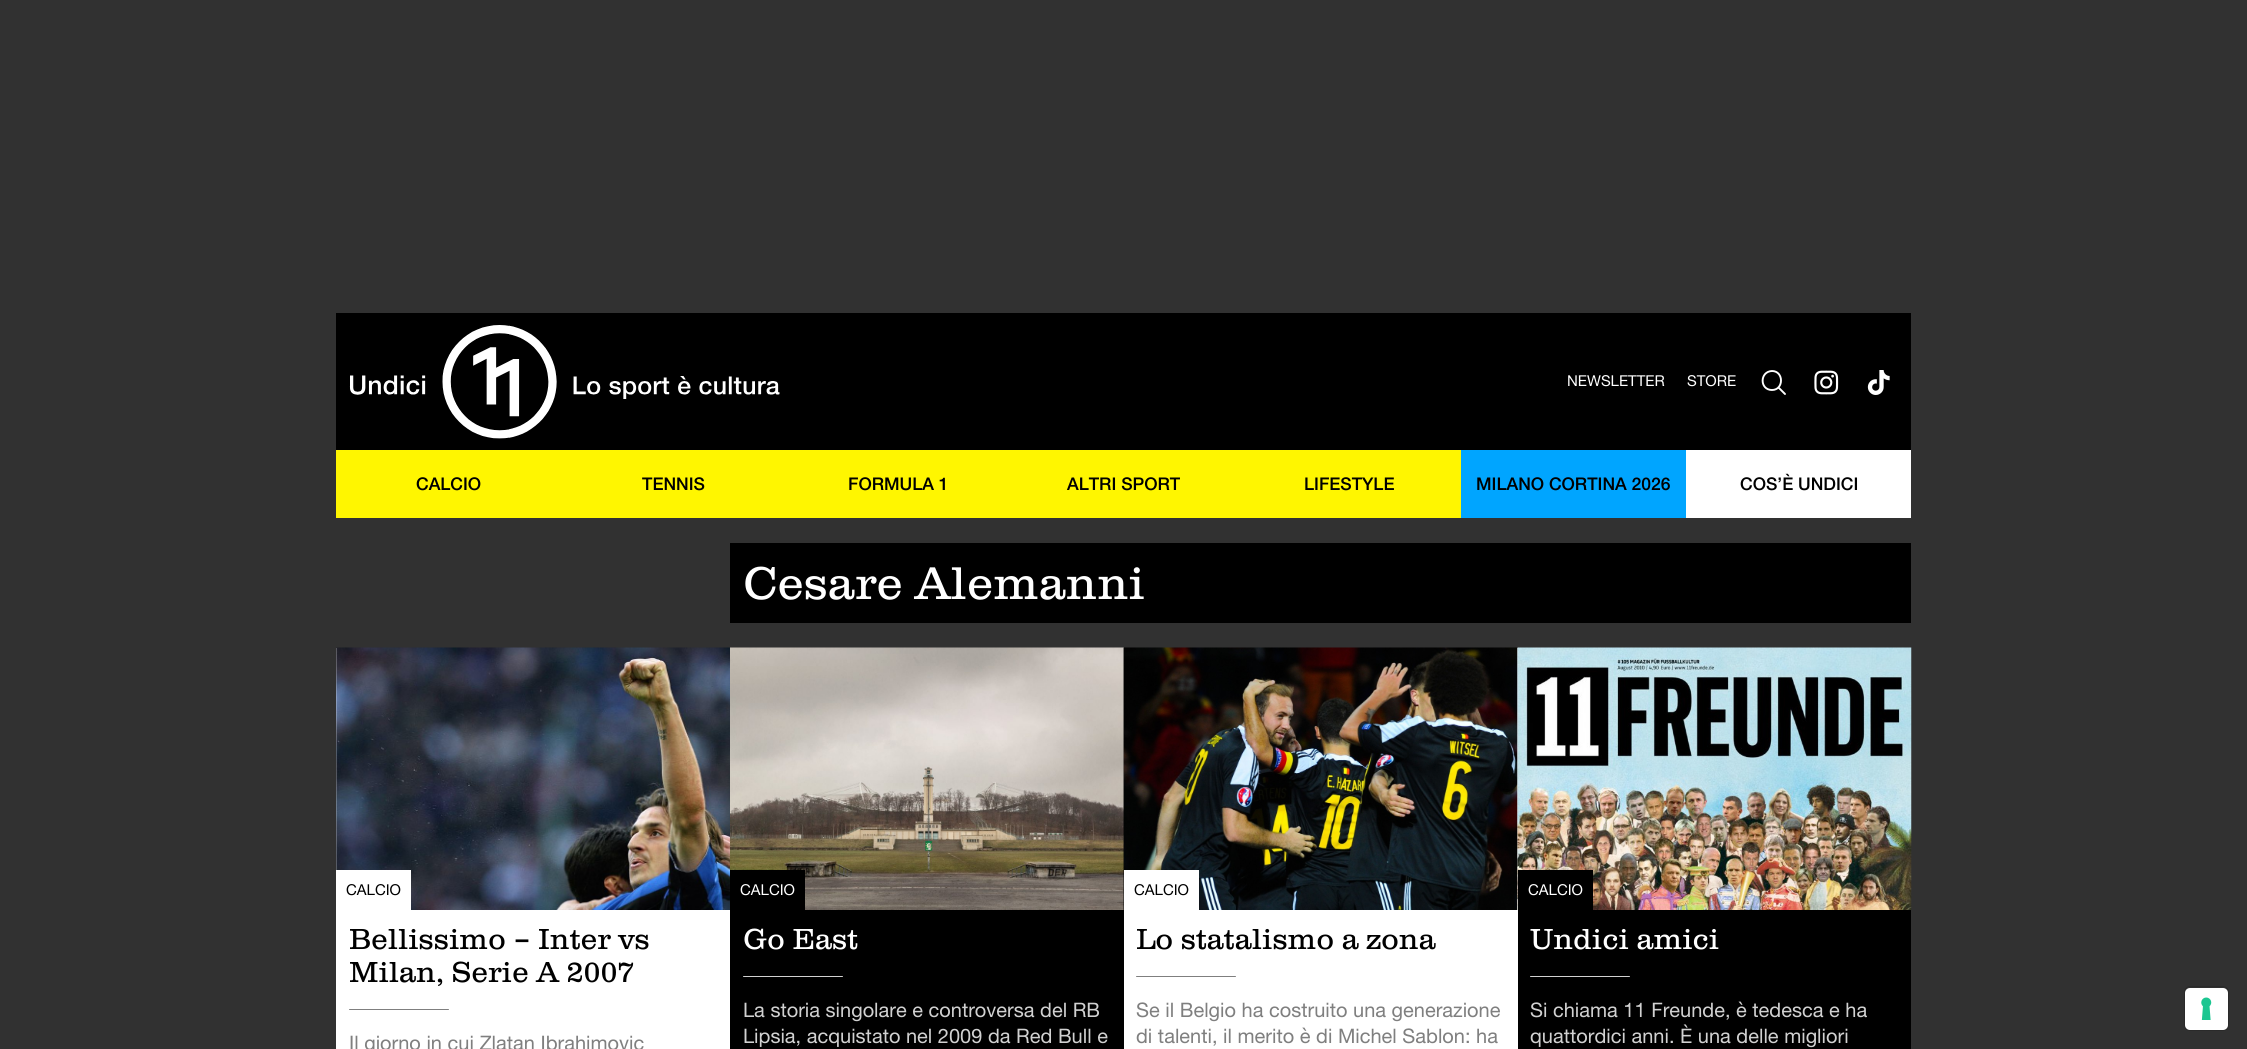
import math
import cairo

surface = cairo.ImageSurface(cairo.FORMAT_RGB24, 2247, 1049)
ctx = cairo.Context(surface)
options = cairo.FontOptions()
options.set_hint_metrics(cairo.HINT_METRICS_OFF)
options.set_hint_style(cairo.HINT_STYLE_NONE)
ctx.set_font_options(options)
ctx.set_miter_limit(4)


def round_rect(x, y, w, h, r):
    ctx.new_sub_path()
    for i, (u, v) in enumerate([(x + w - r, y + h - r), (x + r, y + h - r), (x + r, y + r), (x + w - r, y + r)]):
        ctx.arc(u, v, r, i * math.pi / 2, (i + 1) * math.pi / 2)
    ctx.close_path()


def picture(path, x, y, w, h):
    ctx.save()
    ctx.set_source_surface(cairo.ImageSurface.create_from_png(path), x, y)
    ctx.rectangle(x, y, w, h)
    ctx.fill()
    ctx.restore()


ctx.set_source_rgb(0.192, 0.192, 0.192)
ctx.paint()
ctx.set_source_rgb(0, 0, 0)
ctx.rectangle(336, 313, 1575, 137)
ctx.fill()
picture("img1.png", 349, 325, 431, 114)
ctx.select_font_face("Helvetica Neue")
ctx.set_font_size(15)
ctx.set_source_rgb(1, 1, 1)
ctx.move_to(1567, 386)
ctx.show_text("NEWSLETTER")
ctx.move_to(1687, 386)
ctx.show_text("STORE")
ctx.new_path()
ctx.move_to(1772, 390)
ctx.curve_to(1784, 390, 1784, 371, 1772, 371)
ctx.curve_to(1759.5, 371.5, 1759.5, 390, 1772, 390)
ctx.close_path()
ctx.move_to(1778.5, 387.5)
ctx.line_to(1785, 394)
ctx.set_line_width(1.9)
ctx.set_line_cap(cairo.LINE_CAP_ROUND)
ctx.set_line_join(cairo.LINE_JOIN_ROUND)
ctx.stroke()
picture("img2.png", 1814, 370, 25, 25)
picture("img3.png", 1867, 370, 23, 25)
ctx.set_source_rgb(1, 0.961, 0)
ctx.rectangle(336, 450, 1125, 68)
ctx.fill()
ctx.select_font_face("Helvetica Neue Medium")
ctx.set_font_size(17.5)
ctx.set_source_rgb(0, 0, 0)
ctx.move_to(416, 490)
ctx.show_text("CALCIO")
ctx.move_to(642, 490)
ctx.show_text("TENNIS")
ctx.move_to(848, 490)
ctx.show_text("FORMULA 1")
ctx.move_to(1067, 490)
ctx.show_text("ALTRI SPORT")
ctx.move_to(1304, 490)
ctx.show_text("LIFESTYLE")
ctx.set_source_rgb(0, 0.647, 1)
ctx.rectangle(1461, 450, 225, 68)
ctx.fill()
ctx.set_source_rgb(0, 0, 0)
ctx.move_to(1476, 490)
ctx.show_text("MILANO CORTINA 2026")
ctx.set_source_rgb(1, 1, 1)
ctx.rectangle(1686, 450, 225, 68)
ctx.fill()
ctx.set_source_rgb(0, 0, 0)
ctx.move_to(1740, 490)
ctx.show_text("COS’È UNDICI")
ctx.rectangle(730, 543, 1181, 80)
ctx.fill()
ctx.select_font_face("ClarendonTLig")
ctx.set_font_size(47.5)
ctx.set_source_rgb(1, 1, 1)
ctx.move_to(743, 599)
ctx.show_text("Cesare Alemanni")
ctx.rectangle(336, 648, 394, 401)
ctx.fill()
picture("img4.png", 336, 647, 394, 263)
ctx.rectangle(336, 870, 75, 40)
ctx.fill()
ctx.select_font_face("Helvetica Neue")
ctx.set_font_size(15)
ctx.set_source_rgb(0, 0, 0)
ctx.move_to(346, 895)
ctx.show_text("CALCIO")
ctx.select_font_face("ClarendonTLig")
ctx.set_font_size(30)
ctx.move_to(349, 949)
ctx.show_text("Bellissimo – Inter vs")
ctx.move_to(349, 982)
ctx.show_text("Milan, Serie A 2007")
ctx.set_source_rgb(0.498, 0.498, 0.498)
round_rect(349, 1009, 100, 1, 0.5)
ctx.fill()
ctx.select_font_face("Helvetica Neue")
ctx.set_font_size(20)
ctx.move_to(349, 1050)
ctx.show_text("Il giorno in cui Zlatan Ibrahimovic")
ctx.set_source_rgb(0, 0, 0)
ctx.rectangle(730, 648, 394, 401)
ctx.fill()
picture("img5.png", 730, 647, 394, 263)
ctx.rectangle(730, 870, 75, 40)
ctx.fill()
ctx.set_font_size(15)
ctx.set_source_rgb(1, 1, 1)
ctx.move_to(740, 895)
ctx.show_text("CALCIO")
ctx.select_font_face("ClarendonTLig")
ctx.set_font_size(30)
ctx.move_to(743, 949)
ctx.show_text("Go East")
ctx.set_source_rgb(0.82, 0.82, 0.82)
round_rect(743, 976, 100, 1, 0.5)
ctx.fill()
ctx.select_font_face("Helvetica Neue")
ctx.set_font_size(20)
ctx.move_to(743, 1017)
ctx.show_text("La storia singolare e controversa del RB")
ctx.move_to(743, 1043)
ctx.show_text("Lipsia, acquistato nel 2009 da Red Bull e")
ctx.set_source_rgb(1, 1, 1)
ctx.rectangle(1124, 648, 394, 401)
ctx.fill()
picture("img6.png", 1123, 647, 395, 263)
ctx.rectangle(1124, 870, 75, 40)
ctx.fill()
ctx.set_font_size(15)
ctx.set_source_rgb(0, 0, 0)
ctx.move_to(1134, 895)
ctx.show_text("CALCIO")
ctx.select_font_face("ClarendonTLig")
ctx.set_font_size(30)
ctx.move_to(1136, 949)
ctx.show_text("Lo statalismo a zona")
ctx.set_source_rgb(0.498, 0.498, 0.498)
round_rect(1136, 976, 100, 1, 0.5)
ctx.fill()
ctx.select_font_face("Helvetica Neue")
ctx.set_font_size(20)
ctx.move_to(1136, 1017)
ctx.show_text("Se il Belgio ha costruito una generazione")
ctx.move_to(1136, 1043)
ctx.show_text("di talenti, il merito è di Michel Sablon: ha")
ctx.set_source_rgb(0, 0, 0)
ctx.rectangle(1518, 910, 393, 139)
ctx.fill()
picture("img7.png", 1517, 647, 395, 263)
ctx.rectangle(1518, 870, 75, 40)
ctx.fill()
ctx.set_font_size(15)
ctx.set_source_rgb(1, 1, 1)
ctx.move_to(1528, 895)
ctx.show_text("CALCIO")
ctx.select_font_face("ClarendonTLig")
ctx.set_font_size(30)
ctx.move_to(1530, 949)
ctx.show_text("Undici amici")
ctx.set_source_rgb(0.82, 0.82, 0.82)
round_rect(1530, 976, 100, 1, 0.5)
ctx.fill()
ctx.select_font_face("Helvetica Neue")
ctx.set_font_size(20)
ctx.move_to(1530, 1017)
ctx.show_text("Si chiama 11 Freunde, è tedesca e ha")
ctx.move_to(1530, 1043)
ctx.show_text("quattordici anni. È una delle migliori")
round_rect(2184.5, 986.5, 44, 44, 5.5)
ctx.set_source_rgb(0.165, 0.165, 0.165)
ctx.set_line_width(1)
ctx.set_line_cap(cairo.LINE_CAP_BUTT)
ctx.set_line_join(cairo.LINE_JOIN_MITER)
ctx.stroke()
ctx.set_source_rgb(1, 1, 1)
round_rect(2185, 988, 43, 42, 5)
ctx.fill()
picture("img8.png", 2201, 997, 11, 23)
surface.write_to_png("page.png")
